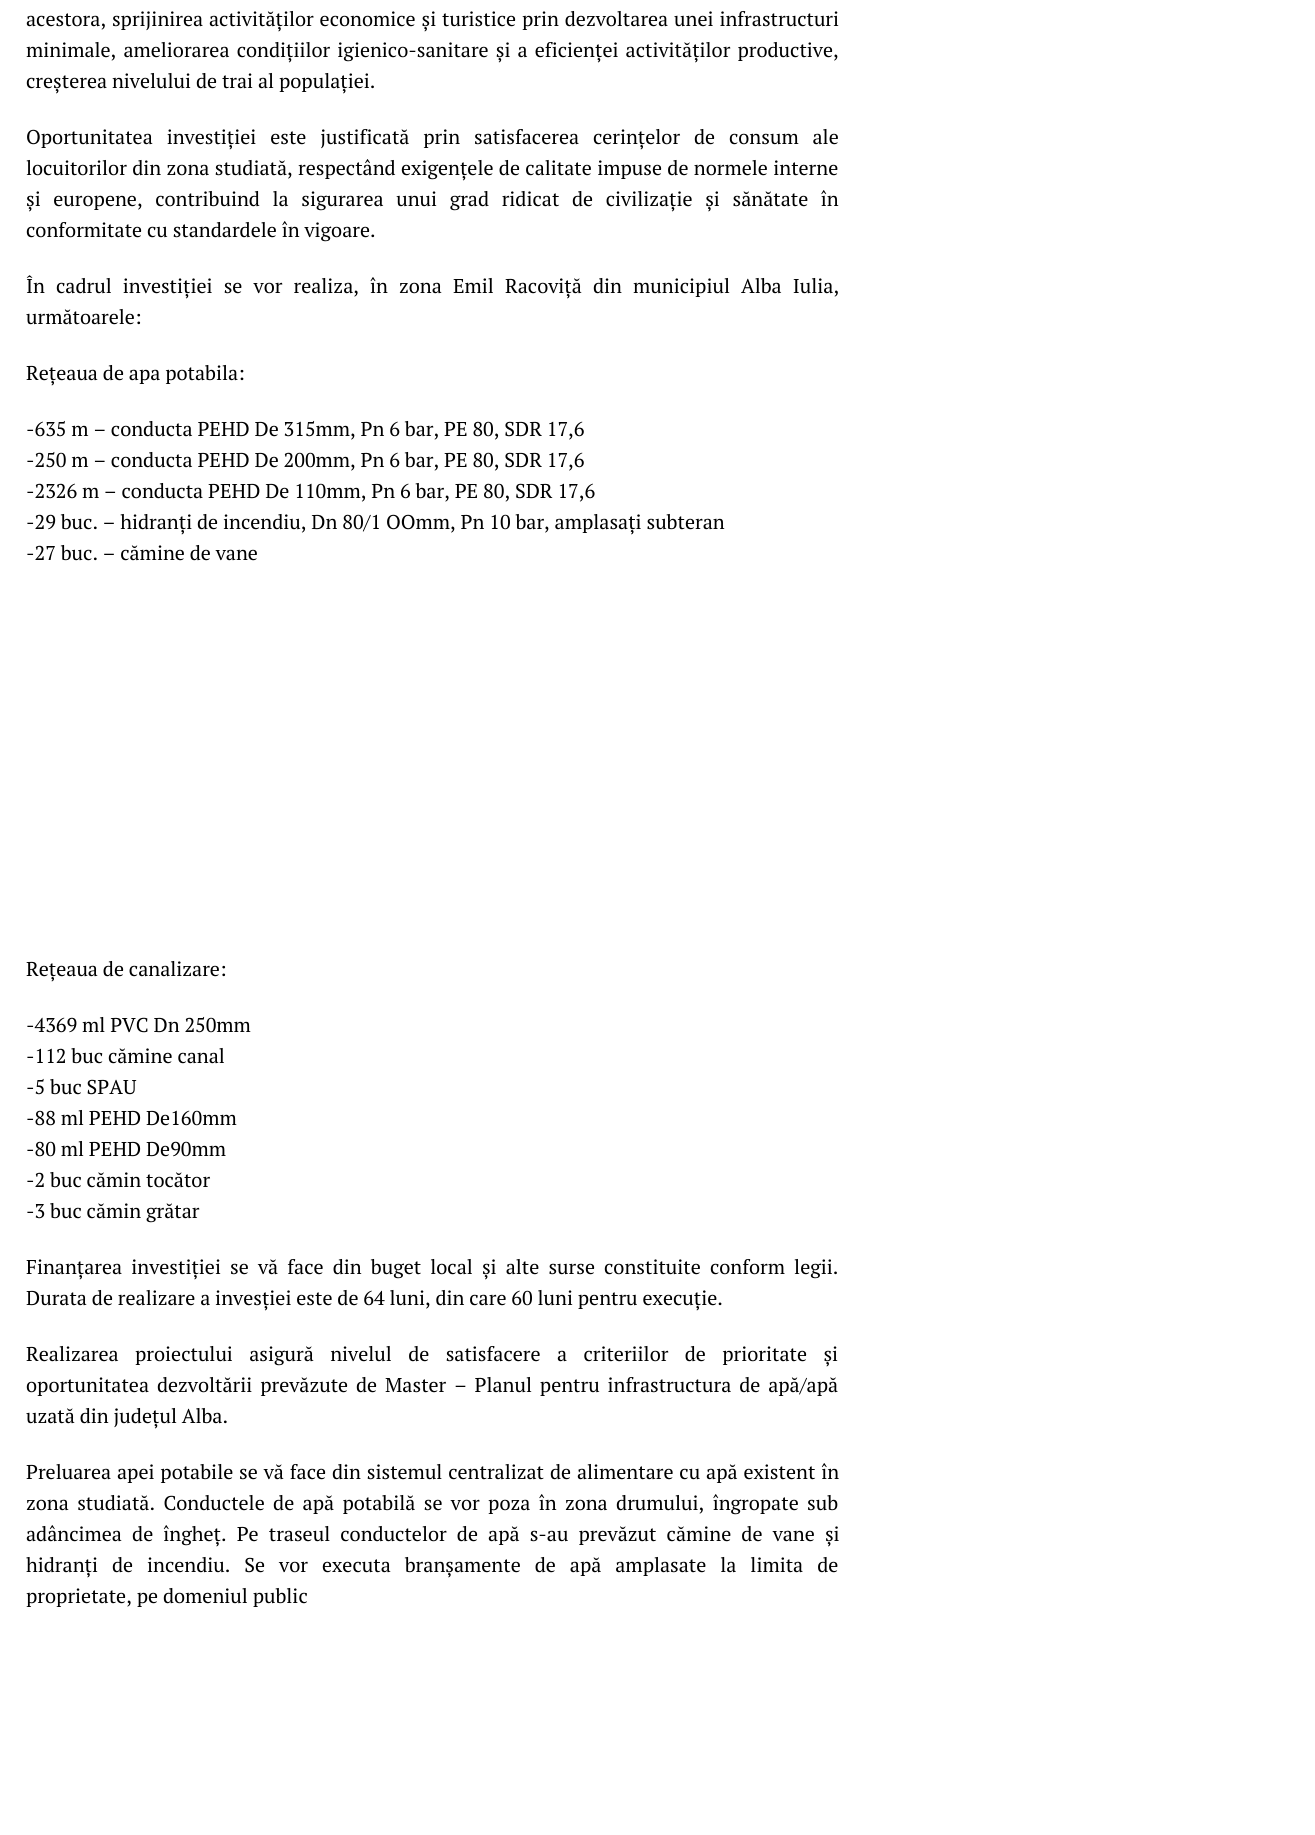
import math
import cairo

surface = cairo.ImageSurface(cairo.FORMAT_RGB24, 1315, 1835)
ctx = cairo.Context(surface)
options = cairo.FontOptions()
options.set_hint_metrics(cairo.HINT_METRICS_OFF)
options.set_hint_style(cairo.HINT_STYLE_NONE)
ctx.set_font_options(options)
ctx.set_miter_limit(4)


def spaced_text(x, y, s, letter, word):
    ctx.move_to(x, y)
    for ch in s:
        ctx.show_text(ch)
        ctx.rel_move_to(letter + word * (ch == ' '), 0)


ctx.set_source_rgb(1, 1, 1)
ctx.paint()
ctx.select_font_face("PT Serif")
ctx.set_font_size(20)
ctx.set_source_rgb(0, 0, 0)
spaced_text(26, 26, "acestora, sprijinirea activităților economice și turistice prin dezvoltarea unei infrastructuri", 0, 1)
spaced_text(26, 57, "minimale, ameliorarea condițiilor igienico-sanitare și a eficienței activităților productive,", 0, 2.25)
ctx.move_to(26, 88)
ctx.show_text("creșterea nivelului de trai al populației.")
spaced_text(26, 144, "Oportunitatea investiției este justificată prin satisfacerea cerințelor de consum ale", 0, 9)
spaced_text(26, 175, "locuitorilor din zona studiată, respectând exigențele de calitate impuse de normele interne", 0, 0.5)
spaced_text(26, 206, "și europene, contribuind la sigurarea unui grad ridicat de civilizație și sănătate în", 0, 7.75)
ctx.move_to(26, 237)
ctx.show_text("conformitate cu standardele în vigoare.")
spaced_text(26, 293, "În cadrul investiției se vor realiza, în zona Emil Racoviță din municipiul Alba Iulia,", 0, 6.25)
ctx.move_to(26, 324)
ctx.show_text("următoarele:")
ctx.move_to(26, 380)
ctx.show_text("Rețeaua de apa potabila:")
ctx.move_to(26, 436)
ctx.show_text("-635 m – conducta PEHD De 315mm, Pn 6 bar, PE 80, SDR 17,6")
ctx.move_to(26, 467)
ctx.show_text("-250 m – conducta PEHD De 200mm, Pn 6 bar, PE 80, SDR 17,6")
ctx.move_to(26, 498)
ctx.show_text("-2326 m – conducta PEHD De 110mm, Pn 6 bar, PE 80, SDR 17,6")
ctx.move_to(26, 529)
ctx.show_text("-29 buc. – hidranți de incendiu, Dn 80/1 OOmm, Pn 10 bar, amplasați subteran")
ctx.move_to(26, 560)
ctx.show_text("-27 buc. – cămine de vane")
ctx.move_to(26, 976)
ctx.show_text("Rețeaua de canalizare:")
ctx.move_to(26, 1032)
ctx.show_text("-4369 ml PVC Dn 250mm")
ctx.move_to(26, 1063)
ctx.show_text("-112 buc cămine canal")
ctx.move_to(26, 1094)
ctx.show_text("-5 buc SPAU")
ctx.move_to(26, 1125)
ctx.show_text("-88 ml PEHD De160mm")
ctx.move_to(26, 1156)
ctx.show_text("-80 ml PEHD De90mm")
ctx.move_to(26, 1187)
ctx.show_text("-2 buc cămin tocător")
ctx.move_to(26, 1218)
ctx.show_text("-3 buc cămin grătar")
spaced_text(26, 1274, "Finanțarea investiției se vă face din buget local și alte surse constituite conform legii.", 0, 4.25)
ctx.move_to(26, 1305)
ctx.show_text("Durata de realizare a invesției este de 64 luni, din care 60 luni pentru execuție.")
spaced_text(26, 1361, "Realizarea proiectului asigură nivelul de satisfacere a criteriilor de prioritate și", 0, 11.5)
spaced_text(26, 1392, "oportunitatea dezvoltării prevăzute de Master – Planul pentru infrastructura de apă/apă", 0, 3)
ctx.move_to(26, 1423)
ctx.show_text("uzată din județul Alba.")
spaced_text(26, 1479, "Preluarea apei potabile se vă face din sistemul centralizat de alimentare cu apă existent în", 0, 1)
spaced_text(26, 1510, "zona studiată. Conductele de apă potabilă se vor poza în zona drumului, îngropate sub", 0, 3.5)
spaced_text(26, 1541, "adâncimea de îngheț. Pe traseul conductelor de apă s-au prevăzut cămine de vane și", 0, 5.25)
spaced_text(26, 1572, "hidranți de incendiu. Se vor executa branșamente de apă amplasate la limita de", 0, 9.1)
ctx.move_to(26, 1603)
ctx.show_text("proprietate, pe domeniul public")
surface.write_to_png("page.png")
